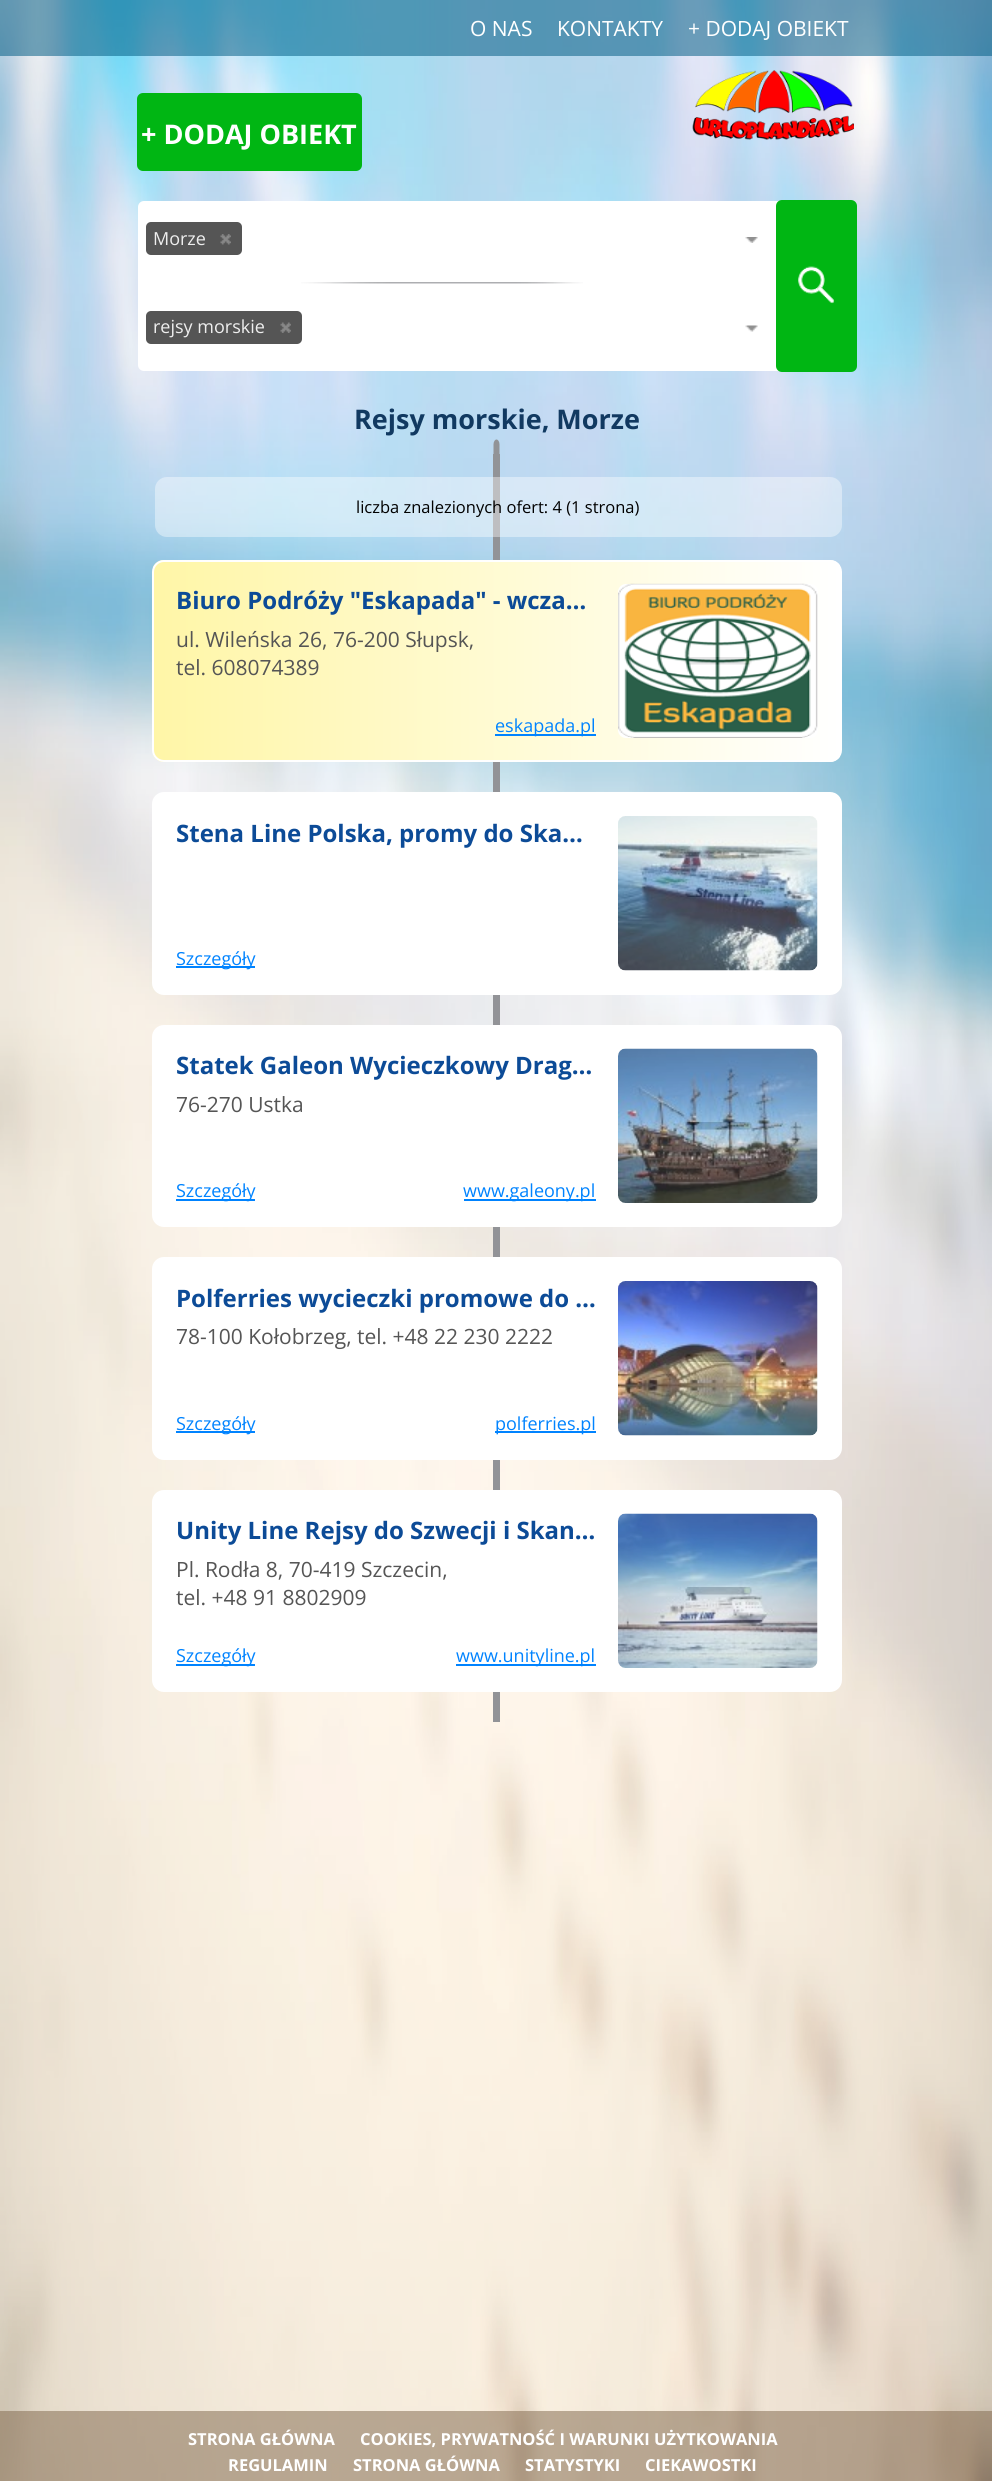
import math
import cairo

surface = cairo.ImageSurface(cairo.FORMAT_RGB24, 992, 2481)
ctx = cairo.Context(surface)
options = cairo.FontOptions()
options.set_hint_metrics(cairo.HINT_METRICS_OFF)
options.set_hint_style(cairo.HINT_STYLE_NONE)
ctx.set_font_options(options)
ctx.set_miter_limit(4)


def round_rect(x, y, w, h, r):
    ctx.new_sub_path()
    for i, (u, v) in enumerate([(x + w - r, y + h - r), (x + r, y + h - r), (x + r, y + r), (x + w - r, y + r)]):
        ctx.arc(u, v, r, i * math.pi / 2, (i + 1) * math.pi / 2)
    ctx.close_path()


def picture(path, x, y, w, h):
    ctx.save()
    ctx.set_source_surface(cairo.ImageSurface.create_from_png(path), x, y)
    ctx.rectangle(x, y, w, h)
    ctx.fill()
    ctx.restore()


ctx.set_source_rgb(1, 1, 1)
ctx.paint()
picture("img1.png", 0, 0, 992, 2481)
ctx.set_source_rgba(0, 0.357, 0.51, 0.53)
ctx.rectangle(0, 0, 992, 56)
ctx.fill()
ctx.select_font_face("Open Sans")
ctx.set_font_size(21)
ctx.set_source_rgb(1, 1, 1)
ctx.move_to(470, 36)
ctx.show_text("O NAS")
ctx.move_to(557, 36)
ctx.show_text("KONTAKTY")
ctx.move_to(688, 36)
ctx.show_text("+ DODAJ OBIEKT")
ctx.set_source_rgb(0, 0.714, 0.078)
round_rect(137, 93, 225, 78, 6)
ctx.fill()
ctx.select_font_face("Open Sans", cairo.FONT_SLANT_NORMAL, cairo.FONT_WEIGHT_BOLD)
ctx.set_font_size(27)
ctx.set_source_rgb(1, 1, 1)
ctx.move_to(141, 144)
ctx.show_text("+ DODAJ OBIEKT")
picture("img2.png", 692, 70, 162, 70)
round_rect(138, 201, 717, 170, 6)
ctx.fill()
ctx.set_source_rgb(0.333, 0.333, 0.333)
round_rect(146, 222, 96, 33, 5)
ctx.fill()
ctx.select_font_face("Open Sans")
ctx.set_font_size(18)
ctx.set_source_rgb(0.933, 0.933, 0.933)
ctx.move_to(153, 245)
ctx.show_text("Morze")
picture("img3.png", 220, 234, 11, 11)
picture("img4.png", 745, 237, 13, 6)
ctx.set_source_rgb(0, 0.714, 0.078)
round_rect(776, 200, 81, 172, 6)
ctx.fill()
picture("img5.png", 798, 266, 37, 38)
picture("img6.png", 301, 282, 282, 2)
ctx.set_source_rgb(0.333, 0.333, 0.333)
round_rect(146, 311, 156, 33, 5)
ctx.fill()
ctx.set_source_rgb(0.933, 0.933, 0.933)
ctx.move_to(153, 333)
ctx.show_text("rejsy morskie")
picture("img7.png", 280, 322, 11, 11)
picture("img8.png", 745, 325, 13, 7)
ctx.select_font_face("Open Sans", cairo.FONT_SLANT_NORMAL, cairo.FONT_WEIGHT_BOLD)
ctx.set_font_size(27)
ctx.set_source_rgb(0.067, 0.224, 0.38)
ctx.move_to(354, 429)
ctx.show_text("Rejsy morskie, Morze")
ctx.set_source_rgb(0.573, 0.576, 0.592)
ctx.new_path()
ctx.move_to(496.5, 439.5)
ctx.curve_to(498, 439.5, 499.5, 441.5, 499.5, 444.5)
ctx.line_to(499.5, 454.5)
ctx.line_to(493.5, 454.5)
ctx.line_to(493.5, 444.5)
ctx.curve_to(493.5, 441.5, 495, 439.5, 496.5, 439.5)
ctx.close_path()
ctx.fill()
ctx.rectangle(493, 454, 7, 1268)
ctx.fill()
ctx.set_source_rgba(1, 1, 1, 0.4)
round_rect(155, 477, 687, 60, 12)
ctx.fill()
ctx.select_font_face("Open Sans")
ctx.set_font_size(16.5)
ctx.set_source_rgb(0, 0, 0)
ctx.move_to(356, 513)
ctx.show_text("liczba znalezionych ofert: 4 (1 strona)")
ctx.save()
round_rect(152, 560, 690, 202, 12)
ctx.clip()
gradient = cairo.LinearGradient(153, 661, 840, 661)
gradient.add_color_stop_rgba(0, 1, 0.965, 0.655, 1)
gradient.add_color_stop_rgba(1, 1, 1, 1, 1)
ctx.set_source(gradient)
ctx.rectangle(153, 560, 687, 202)
ctx.fill()
ctx.restore()
round_rect(153, 561, 688, 200, 11)
ctx.set_source_rgb(1, 1, 1)
ctx.stroke()
ctx.select_font_face("Open Sans", cairo.FONT_SLANT_NORMAL, cairo.FONT_WEIGHT_BOLD)
ctx.set_font_size(24)
ctx.set_source_rgb(0.047, 0.294, 0.592)
ctx.move_to(176, 609)
ctx.show_text("Biuro Podróży \"Eskapada\" - wcza…")
ctx.select_font_face("Open Sans")
ctx.set_font_size(21)
ctx.set_source_rgb(0.333, 0.333, 0.333)
ctx.move_to(176, 647)
ctx.show_text("ul. Wileńska 26, 76-200 Słupsk,")
ctx.move_to(176, 675)
ctx.show_text("tel. 608074389")
ctx.set_source_rgb(0, 0.514, 1)
ctx.rectangle(495, 734, 101, 2)
ctx.fill()
ctx.set_font_size(18)
ctx.move_to(495, 732)
ctx.show_text("eskapada.pl")
ctx.set_source_rgb(1, 1, 1)
round_rect(618, 584, 200, 154, 8)
ctx.fill()
picture("img9.png", 685, 657, 67, 8)
picture("img10.png", 618, 583, 200, 155)
round_rect(153, 793, 688, 201, 11)
ctx.fill_preserve()
ctx.stroke()
ctx.select_font_face("Open Sans", cairo.FONT_SLANT_NORMAL, cairo.FONT_WEIGHT_BOLD)
ctx.set_font_size(24)
ctx.set_source_rgb(0.047, 0.294, 0.592)
ctx.move_to(176, 842)
ctx.show_text("Stena Line Polska, promy do Ska…")
ctx.set_source_rgb(0, 0.514, 1)
ctx.rectangle(176, 966, 79, 2)
ctx.fill()
ctx.select_font_face("Open Sans")
ctx.set_font_size(18)
ctx.move_to(176, 965)
ctx.show_text("Szczegóły")
picture("img11.png", 685, 889, 67, 8)
picture("img12.png", 618, 816, 200, 155)
ctx.set_source_rgb(1, 1, 1)
round_rect(153, 1026, 688, 200, 11)
ctx.fill_preserve()
ctx.stroke()
ctx.select_font_face("Open Sans", cairo.FONT_SLANT_NORMAL, cairo.FONT_WEIGHT_BOLD)
ctx.set_font_size(24)
ctx.set_source_rgb(0.047, 0.294, 0.592)
ctx.move_to(176, 1074)
ctx.show_text("Statek Galeon Wycieczkowy Drag…")
ctx.select_font_face("Open Sans")
ctx.set_font_size(21)
ctx.set_source_rgb(0.333, 0.333, 0.333)
ctx.move_to(176, 1112)
ctx.show_text("76-270 Ustka")
ctx.set_source_rgb(0, 0.514, 1)
ctx.rectangle(176, 1199, 79, 2)
ctx.fill()
ctx.set_font_size(18)
ctx.move_to(176, 1197)
ctx.show_text("Szczegóły")
ctx.rectangle(464, 1199, 132, 2)
ctx.fill()
ctx.move_to(463, 1197)
ctx.show_text("www.galeony.pl")
picture("img9.png", 685, 1122, 67, 8)
picture("img13.png", 618, 1048, 200, 155)
ctx.set_source_rgb(1, 1, 1)
round_rect(153, 1258, 688, 201, 11)
ctx.fill_preserve()
ctx.stroke()
ctx.select_font_face("Open Sans", cairo.FONT_SLANT_NORMAL, cairo.FONT_WEIGHT_BOLD)
ctx.set_font_size(24)
ctx.set_source_rgb(0.047, 0.294, 0.592)
ctx.move_to(176, 1307)
ctx.show_text("Polferries wycieczki promowe do …")
ctx.select_font_face("Open Sans")
ctx.set_font_size(21)
ctx.set_source_rgb(0.333, 0.333, 0.333)
ctx.move_to(176, 1344)
ctx.show_text("78-100 Kołobrzeg, tel. +48 22 230 2222")
ctx.set_source_rgb(0, 0.514, 1)
ctx.rectangle(176, 1431, 79, 2)
ctx.fill()
ctx.set_font_size(18)
ctx.move_to(176, 1430)
ctx.show_text("Szczegóły")
ctx.rectangle(495, 1431, 101, 2)
ctx.fill()
ctx.move_to(495, 1430)
ctx.show_text("polferries.pl")
picture("img11.png", 685, 1354, 67, 8)
picture("img14.png", 618, 1281, 200, 155)
ctx.set_source_rgb(1, 1, 1)
round_rect(153, 1491, 688, 200, 11)
ctx.fill_preserve()
ctx.stroke()
ctx.select_font_face("Open Sans", cairo.FONT_SLANT_NORMAL, cairo.FONT_WEIGHT_BOLD)
ctx.set_font_size(24)
ctx.set_source_rgb(0.047, 0.294, 0.592)
ctx.move_to(176, 1539)
ctx.show_text("Unity Line Rejsy do Szwecji i Skan…")
ctx.select_font_face("Open Sans")
ctx.set_font_size(21)
ctx.set_source_rgb(0.333, 0.333, 0.333)
ctx.move_to(176, 1577)
ctx.show_text("Pl. Rodła 8, 70-419 Szczecin,")
ctx.move_to(176, 1605)
ctx.show_text("tel. +48 91 8802909")
ctx.set_source_rgb(0, 0.514, 1)
ctx.rectangle(176, 1664, 79, 2)
ctx.fill()
ctx.set_font_size(18)
ctx.move_to(176, 1662)
ctx.show_text("Szczegóły")
ctx.rectangle(456, 1664, 140, 2)
ctx.fill()
ctx.move_to(456, 1662)
ctx.show_text("www.unityline.pl")
picture("img9.png", 685, 1587, 67, 8)
picture("img15.png", 618, 1513, 200, 155)
ctx.set_source_rgba(0.514, 0.42, 0.31, 0.53)
ctx.rectangle(0, 2411, 992, 70)
ctx.fill()
ctx.select_font_face("Open Sans", cairo.FONT_SLANT_NORMAL, cairo.FONT_WEIGHT_BOLD)
ctx.set_font_size(16.5)
ctx.set_source_rgb(1, 1, 1)
ctx.move_to(188, 2445)
ctx.show_text("STRONA GŁÓWNA")
ctx.move_to(360, 2445)
ctx.show_text("COOKIES, PRYWATNOŚĆ I WARUNKI UŻYTKOWANIA")
ctx.move_to(228, 2471)
ctx.show_text("REGULAMIN")
ctx.move_to(353, 2471)
ctx.show_text("STRONA GŁÓWNA")
ctx.move_to(525, 2471)
ctx.show_text("STATYSTYKI")
ctx.move_to(645, 2471)
ctx.show_text("CIEKAWOSTKI")
surface.write_to_png("page.png")
